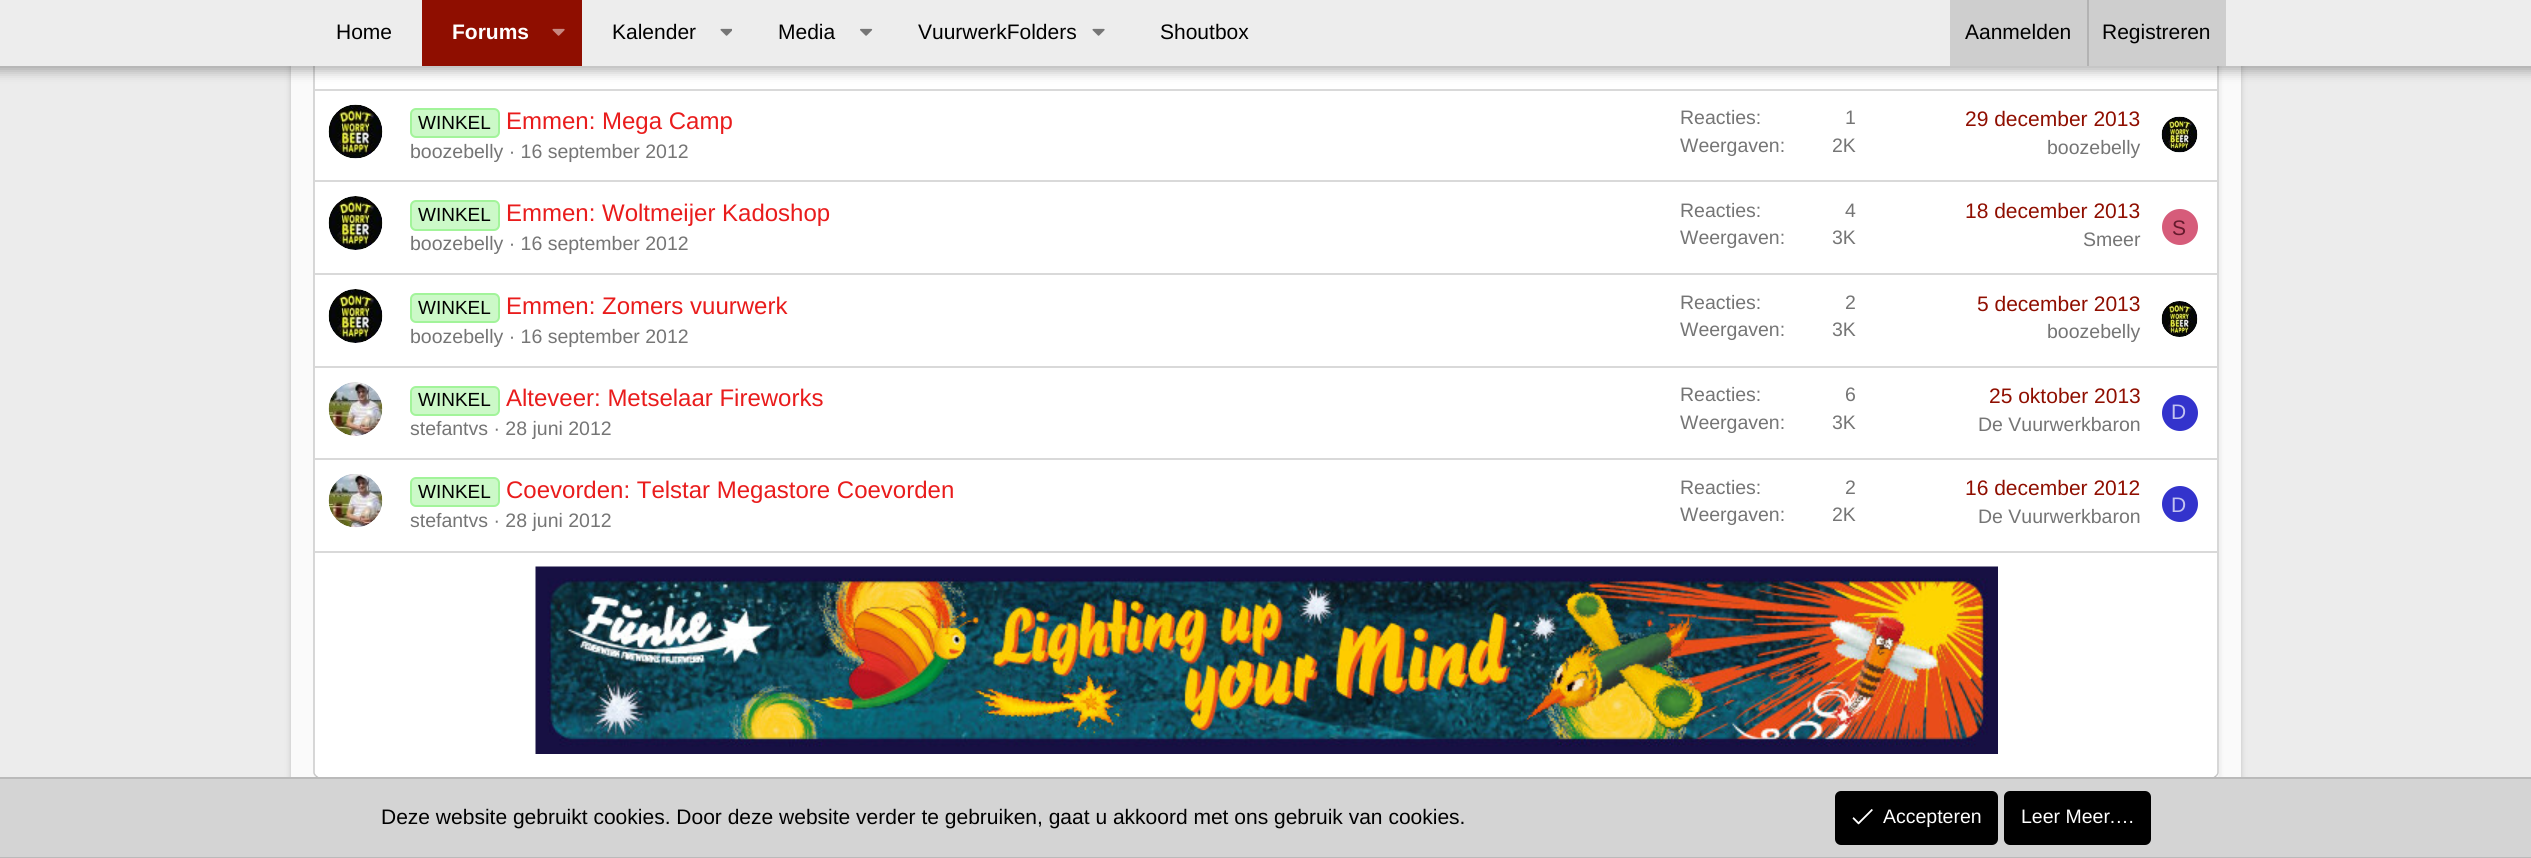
import math
import cairo

surface = cairo.ImageSurface(cairo.FORMAT_RGB24, 2531, 858)
ctx = cairo.Context(surface)
options = cairo.FontOptions()
options.set_hint_metrics(cairo.HINT_METRICS_OFF)
options.set_hint_style(cairo.HINT_STYLE_NONE)
ctx.set_font_options(options)
ctx.set_miter_limit(4)


def round_rect(x, y, w, h, r):
    ctx.new_sub_path()
    for i, (u, v) in enumerate([(x + w - r, y + h - r), (x + r, y + h - r), (x + r, y + r), (x + w - r, y + r)]):
        ctx.arc(u, v, r, i * math.pi / 2, (i + 1) * math.pi / 2)
    ctx.close_path()


def shadow(x, y, w, h, r, blur, alpha):
    ctx.push_group_with_content(cairo.CONTENT_ALPHA)
    ctx.set_operator(cairo.OPERATOR_SOURCE)
    for i in range(15, -16, -2):
        e = blur * i / 6
        if min(w, h) + 2 * e > 0:
            ctx.set_source_rgba(0, 0, 0, alpha * math.erfc((i - 1) / 8.5) / 2)
            round_rect(x - e, y - e, w + 2 * e, h + 2 * e, max(0, min(r + e + blur * .6, min(w, h) / 2 + e)))
            ctx.fill()
    ctx.mask(ctx.pop_group())


def picture(path, x, y, w, h):
    ctx.save()
    ctx.set_source_surface(cairo.ImageSurface.create_from_png(path), x, y)
    ctx.rectangle(x, y, w, h)
    ctx.fill()
    ctx.restore()


ctx.set_source_rgb(0.922, 0.922, 0.922)
ctx.paint()
ctx.set_source_rgb(0.761, 0.761, 0.761)
shadow(291, -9, 1950, 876, 0, 3, 1)
ctx.set_source_rgb(0.98, 0.98, 0.98)
ctx.rectangle(291, 66, 1950, 711)
ctx.fill()
ctx.set_source_rgb(0, 0, 0)
shadow(317, -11, 1905, 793, 6, 1.5, 0.04)
ctx.set_source_rgb(1, 1, 1)
round_rect(314, -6, 1905, 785, 6)
ctx.fill()
ctx.new_path()
ctx.move_to(2216, -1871)
ctx.curve_to(2217, -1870, 2218, -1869, 2218, -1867.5)
ctx.line_to(2218, 772.5)
ctx.curve_to(2218, 774, 2217, 775, 2216, 776)
ctx.set_source_rgb(0.788, 0.788, 0.788)
ctx.set_line_width(1.5)
ctx.stroke()
ctx.new_path()
ctx.move_to(2216, 776)
ctx.curve_to(2215, 777, 2214, 778, 2212.5, 778)
ctx.line_to(319.5, 778)
ctx.curve_to(318, 778, 317, 777, 316, 776)
ctx.set_source_rgb(0.749, 0.749, 0.749)
ctx.stroke()
ctx.new_path()
ctx.move_to(316, 776)
ctx.curve_to(315, 775, 314, 774, 314, 772.5)
ctx.line_to(314, -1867.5)
ctx.curve_to(314, -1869, 315, -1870, 316, -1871)
ctx.set_source_rgb(0.788, 0.788, 0.788)
ctx.stroke()
ctx.set_source_rgb(0.851, 0.851, 0.851)
ctx.rectangle(315, 89, 1902, 2)
ctx.fill()
ctx.set_source_rgb(0, 0, 0)
shadow(-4, -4, 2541, 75, 0, 6, 0.3)
ctx.set_source_rgb(0.929, 0.929, 0.929)
ctx.rectangle(0, 0, 2531, 66)
ctx.fill()
ctx.select_font_face("Liberation Sans")
ctx.set_font_size(21)
ctx.set_source_rgb(0, 0, 0)
ctx.move_to(336, 39)
ctx.show_text("Home")
ctx.set_source_rgb(0.561, 0.055, 0)
ctx.rectangle(422, 0, 160, 66)
ctx.fill()
ctx.select_font_face("Liberation Sans", cairo.FONT_SLANT_NORMAL, cairo.FONT_WEIGHT_BOLD)
ctx.set_source_rgb(1, 1, 1)
ctx.move_to(452, 39)
ctx.show_text("Forums")
picture("img1.png", 552, 28, 13, 8)
ctx.select_font_face("Liberation Sans")
ctx.set_source_rgb(0, 0, 0)
ctx.move_to(612, 39)
ctx.show_text("Kalender")
picture("img2.png", 720, 28, 12, 8)
ctx.move_to(778, 39)
ctx.show_text("Media")
picture("img3.png", 860, 28, 13, 8)
ctx.move_to(918, 39)
ctx.show_text("VuurwerkFolders")
picture("img4.png", 1092, 28, 13, 8)
ctx.move_to(1160, 39)
ctx.show_text("Shoutbox")
ctx.set_source_rgb(0.808, 0.808, 0.808)
ctx.rectangle(1950, 0, 276, 66)
ctx.fill()
ctx.set_source_rgb(0, 0, 0)
ctx.move_to(1965, 39)
ctx.show_text("Aanmelden")
ctx.set_source_rgb(0.702, 0.702, 0.702)
ctx.rectangle(2087, 0, 2, 66)
ctx.fill()
ctx.set_source_rgb(0, 0, 0)
ctx.move_to(2102, 39)
ctx.show_text("Registreren")
picture("img5.png", 328, 104, 55, 55)
ctx.set_source_rgb(0.8, 0.976, 0.784)
round_rect(411, 109, 88, 28, 5)
ctx.fill_preserve()
ctx.set_source_rgb(0.635, 0.957, 0.604)
ctx.set_line_width(2)
ctx.stroke()
ctx.set_font_size(19)
ctx.set_source_rgb(0, 0, 0)
ctx.move_to(418, 129)
ctx.show_text("WINKEL")
ctx.set_font_size(24)
ctx.set_source_rgb(0.914, 0.11, 0.11)
ctx.move_to(506, 129)
ctx.show_text("Emmen: Mega Camp")
ctx.set_font_size(19.5)
ctx.set_source_rgb(0.459, 0.459, 0.459)
ctx.move_to(410, 158)
ctx.show_text("boozebelly · 16 september 2012")
ctx.move_to(1680, 124)
ctx.show_text("Reacties:")
ctx.move_to(1845, 124)
ctx.show_text("1")
ctx.move_to(1680, 152)
ctx.show_text("Weergaven:")
ctx.move_to(1832, 152)
ctx.show_text("2K")
ctx.set_font_size(21)
ctx.set_source_rgb(0.561, 0.055, 0)
ctx.move_to(1965, 126)
ctx.show_text("29 december 2013")
ctx.set_font_size(19.5)
ctx.set_source_rgb(0.459, 0.459, 0.459)
ctx.move_to(2047, 154)
ctx.show_text("boozebelly")
picture("img6.png", 2161, 116, 37, 37)
ctx.set_source_rgb(0.851, 0.851, 0.851)
ctx.rectangle(315, 180, 1902, 2)
ctx.fill()
picture("img7.png", 328, 196, 55, 54)
ctx.set_source_rgb(0.8, 0.976, 0.784)
round_rect(411, 201, 88, 29, 5)
ctx.fill_preserve()
ctx.set_source_rgb(0.635, 0.957, 0.604)
ctx.stroke()
ctx.set_font_size(19)
ctx.set_source_rgb(0, 0, 0)
ctx.move_to(418, 221)
ctx.show_text("WINKEL")
ctx.set_font_size(24)
ctx.set_source_rgb(0.914, 0.11, 0.11)
ctx.move_to(506, 221)
ctx.show_text("Emmen: Woltmeijer Kadoshop")
ctx.set_font_size(19.5)
ctx.set_source_rgb(0.459, 0.459, 0.459)
ctx.move_to(410, 250)
ctx.show_text("boozebelly · 16 september 2012")
ctx.move_to(1680, 217)
ctx.show_text("Reacties:")
ctx.move_to(1845, 217)
ctx.show_text("4")
ctx.move_to(1680, 244)
ctx.show_text("Weergaven:")
ctx.move_to(1832, 244)
ctx.show_text("3K")
ctx.set_font_size(21)
ctx.set_source_rgb(0.561, 0.055, 0)
ctx.move_to(1965, 218)
ctx.show_text("18 december 2013")
ctx.set_font_size(19.5)
ctx.set_source_rgb(0.459, 0.459, 0.459)
ctx.move_to(2083, 246)
ctx.show_text("Smeer")
ctx.set_source_rgb(0.839, 0.361, 0.478)
ctx.new_path()
ctx.arc(2180, 227, 18, 0, 2 * math.pi)
ctx.fill()
ctx.set_font_size(21)
ctx.set_source_rgb(0.4, 0.102, 0.176)
ctx.move_to(2172, 235)
ctx.show_text("S")
ctx.set_source_rgb(0.851, 0.851, 0.851)
ctx.rectangle(315, 273, 1902, 2)
ctx.fill()
picture("img7.png", 328, 289, 55, 54)
ctx.set_source_rgb(0.8, 0.976, 0.784)
round_rect(411, 294, 88, 28, 5)
ctx.fill_preserve()
ctx.set_source_rgb(0.635, 0.957, 0.604)
ctx.stroke()
ctx.set_font_size(19)
ctx.set_source_rgb(0, 0, 0)
ctx.move_to(418, 314)
ctx.show_text("WINKEL")
ctx.set_font_size(24)
ctx.set_source_rgb(0.914, 0.11, 0.11)
ctx.move_to(506, 314)
ctx.show_text("Emmen: Zomers vuurwerk")
ctx.set_font_size(19.5)
ctx.set_source_rgb(0.459, 0.459, 0.459)
ctx.move_to(410, 343)
ctx.show_text("boozebelly · 16 september 2012")
ctx.move_to(1680, 309)
ctx.show_text("Reacties:")
ctx.move_to(1845, 309)
ctx.show_text("2")
ctx.move_to(1680, 336)
ctx.show_text("Weergaven:")
ctx.move_to(1832, 336)
ctx.show_text("3K")
ctx.set_font_size(21)
ctx.set_source_rgb(0.561, 0.055, 0)
ctx.move_to(1977, 311)
ctx.show_text("5 december 2013")
ctx.set_font_size(19.5)
ctx.set_source_rgb(0.459, 0.459, 0.459)
ctx.move_to(2047, 338)
ctx.show_text("boozebelly")
picture("img8.png", 2161, 301, 37, 36)
ctx.set_source_rgb(0.851, 0.851, 0.851)
ctx.rectangle(315, 366, 1902, 2)
ctx.fill()
picture("img9.png", 328, 382, 55, 54)
ctx.set_source_rgb(0.8, 0.976, 0.784)
round_rect(411, 387, 88, 28, 5)
ctx.fill_preserve()
ctx.set_source_rgb(0.635, 0.957, 0.604)
ctx.stroke()
ctx.set_font_size(19)
ctx.set_source_rgb(0, 0, 0)
ctx.move_to(418, 406)
ctx.show_text("WINKEL")
ctx.set_font_size(24)
ctx.set_source_rgb(0.914, 0.11, 0.11)
ctx.move_to(506, 406)
ctx.show_text("Alteveer: Metselaar Fireworks")
ctx.set_font_size(19.5)
ctx.set_source_rgb(0.459, 0.459, 0.459)
ctx.move_to(410, 435)
ctx.show_text("stefantvs · 28 juni 2012")
ctx.move_to(1680, 401)
ctx.show_text("Reacties:")
ctx.move_to(1845, 401)
ctx.show_text("6")
ctx.move_to(1680, 429)
ctx.show_text("Weergaven:")
ctx.move_to(1832, 429)
ctx.show_text("3K")
ctx.set_font_size(21)
ctx.set_source_rgb(0.561, 0.055, 0)
ctx.move_to(1989, 403)
ctx.show_text("25 oktober 2013")
ctx.set_font_size(19.5)
ctx.set_source_rgb(0.459, 0.459, 0.459)
ctx.move_to(1978, 431)
ctx.show_text("De Vuurwerkbaron")
ctx.set_source_rgb(0.2, 0.2, 0.8)
ctx.new_path()
ctx.arc(2180, 413, 18, 0, 2 * math.pi)
ctx.fill()
ctx.set_font_size(21)
ctx.set_source_rgb(0.761, 0.761, 0.941)
ctx.move_to(2171, 419)
ctx.show_text("D")
ctx.set_source_rgb(0.851, 0.851, 0.851)
ctx.rectangle(315, 458, 1902, 2)
ctx.fill()
picture("img10.png", 328, 474, 55, 54)
ctx.set_source_rgb(0.8, 0.976, 0.784)
round_rect(411, 478, 88, 28, 5)
ctx.fill_preserve()
ctx.set_source_rgb(0.635, 0.957, 0.604)
ctx.stroke()
ctx.set_font_size(19)
ctx.set_source_rgb(0, 0, 0)
ctx.move_to(418, 498)
ctx.show_text("WINKEL")
ctx.set_font_size(24)
ctx.set_source_rgb(0.914, 0.11, 0.11)
ctx.move_to(506, 498)
ctx.show_text("Coevorden: Telstar Megastore Coevorden")
ctx.set_font_size(19.5)
ctx.set_source_rgb(0.459, 0.459, 0.459)
ctx.move_to(410, 527)
ctx.show_text("stefantvs · 28 juni 2012")
ctx.move_to(1680, 494)
ctx.show_text("Reacties:")
ctx.move_to(1845, 494)
ctx.show_text("2")
ctx.move_to(1680, 521)
ctx.show_text("Weergaven:")
ctx.move_to(1832, 521)
ctx.show_text("2K")
ctx.set_font_size(21)
ctx.set_source_rgb(0.561, 0.055, 0)
ctx.move_to(1965, 495)
ctx.show_text("16 december 2012")
ctx.set_font_size(19.5)
ctx.set_source_rgb(0.459, 0.459, 0.459)
ctx.move_to(1978, 523)
ctx.show_text("De Vuurwerkbaron")
ctx.set_source_rgb(0.2, 0.2, 0.8)
ctx.new_path()
ctx.arc(2180, 504, 18, 0, 2 * math.pi)
ctx.fill()
ctx.set_font_size(21)
ctx.set_source_rgb(0.761, 0.761, 0.941)
ctx.move_to(2171, 512)
ctx.show_text("D")
ctx.set_source_rgb(0.851, 0.851, 0.851)
ctx.rectangle(315, 551, 1902, 2)
ctx.fill()
picture("img11.png", 535, 566, 1463, 188)
ctx.set_source_rgb(0.831, 0.831, 0.831)
ctx.rectangle(0, 779, 2531, 78)
ctx.fill()
ctx.set_source_rgb(0.729, 0.729, 0.729)
ctx.rectangle(0, 777, 2531, 2)
ctx.fill()
ctx.rectangle(0, 857, 2531, 1)
ctx.fill()
ctx.set_source_rgb(0, 0, 0)
ctx.move_to(381, 824)
ctx.show_text("Deze website gebruikt cookies. Door deze website verder te gebruiken, gaat u akkoord met ons gebruik van cookies.")
round_rect(1836, 792, 161, 52, 5)
ctx.fill_preserve()
ctx.stroke()
picture("img12.png", 1852, 809, 21, 16)
ctx.set_font_size(19.5)
ctx.set_source_rgb(1, 1, 1)
ctx.move_to(1883, 823)
ctx.show_text("Accepteren")
ctx.set_source_rgb(0, 0, 0)
round_rect(2005, 792, 145, 52, 5)
ctx.fill_preserve()
ctx.stroke()
ctx.set_source_rgb(1, 1, 1)
ctx.move_to(2021, 823)
ctx.show_text("Leer Meer.…")
surface.write_to_png("page.png")
